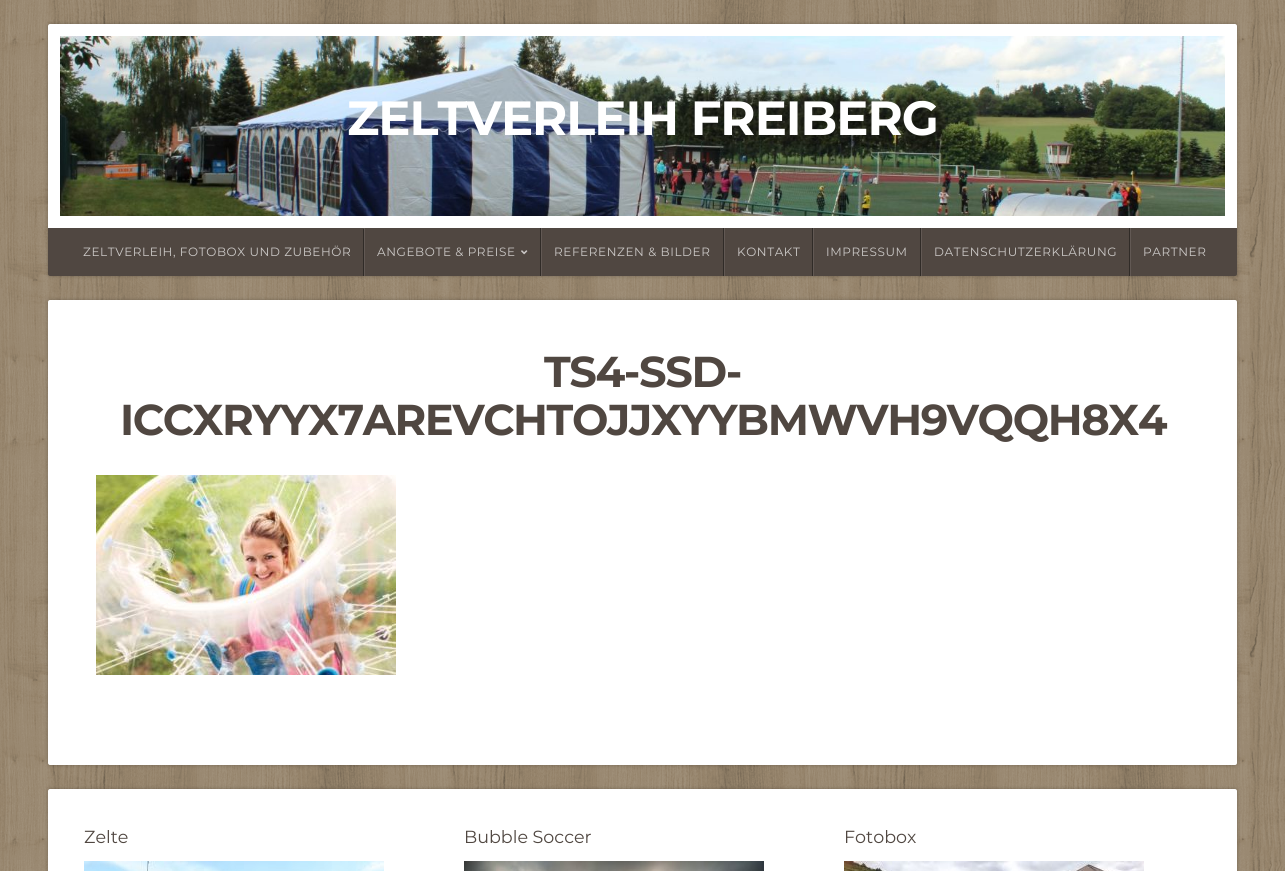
import math
import cairo

surface = cairo.ImageSurface(cairo.FORMAT_RGB24, 1285, 871)
ctx = cairo.Context(surface)
options = cairo.FontOptions()
options.set_hint_metrics(cairo.HINT_METRICS_OFF)
options.set_hint_style(cairo.HINT_STYLE_NONE)
ctx.set_font_options(options)
ctx.set_miter_limit(4)


def spaced_text(x, y, s, letter, word):
    ctx.move_to(x, y)
    for ch in s:
        ctx.show_text(ch)
        ctx.rel_move_to(letter + word * (ch == ' '), 0)


def round_rect(x, y, w, h, r):
    ctx.new_sub_path()
    for i, (u, v) in enumerate([(x + w - r, y + h - r), (x + r, y + h - r), (x + r, y + r), (x + w - r, y + r)]):
        ctx.arc(u, v, r, i * math.pi / 2, (i + 1) * math.pi / 2)
    ctx.close_path()


def shadow(x, y, w, h, r, blur, alpha):
    ctx.push_group_with_content(cairo.CONTENT_ALPHA)
    ctx.set_operator(cairo.OPERATOR_SOURCE)
    for i in range(15, -16, -2):
        e = blur * i / 6
        if min(w, h) + 2 * e > 0:
            ctx.set_source_rgba(0, 0, 0, alpha * math.erfc((i - 1) / 8.5) / 2)
            round_rect(x - e, y - e, w + 2 * e, h + 2 * e, max(0, min(r + e + blur * .6, min(w, h) / 2 + e)))
            ctx.fill()
    ctx.mask(ctx.pop_group())


def picture(path, x, y, w, h):
    ctx.save()
    ctx.set_source_surface(cairo.ImageSurface.create_from_png(path), x, y)
    ctx.rectangle(x, y, w, h)
    ctx.fill()
    ctx.restore()


ctx.set_source_rgb(1, 1, 1)
ctx.paint()
picture("img1.png", 0, 0, 1285, 871)
ctx.set_source_rgb(0, 0, 0)
shadow(48, 24, 1189, 252, 2, 2, 0.24)
ctx.set_source_rgb(1, 1, 1)
ctx.new_path()
ctx.move_to(50, 24)
ctx.line_to(1235, 24)
ctx.curve_to(1236, 24, 1237, 25, 1237, 26)
ctx.line_to(1237, 228)
ctx.line_to(48, 228)
ctx.line_to(48, 26)
ctx.curve_to(48, 25, 49, 24, 50, 24)
ctx.close_path()
ctx.fill()
picture("img2.png", 60, 36, 1165, 180)
ctx.select_font_face("Montserrat", cairo.FONT_SLANT_NORMAL, cairo.FONT_WEIGHT_BOLD)
ctx.set_font_size(48)
spaced_text(347, 135, "ZELTVERLEIH FREIBERG", -1, 0)
ctx.set_source_rgb(0.314, 0.278, 0.255)
ctx.new_path()
ctx.move_to(48, 228)
ctx.line_to(1237, 228)
ctx.line_to(1237, 274)
ctx.curve_to(1237, 275, 1236, 276, 1235, 276)
ctx.line_to(50, 276)
ctx.curve_to(49, 276, 48, 275, 48, 274)
ctx.close_path()
ctx.fill()
ctx.set_source_rgb(0.188, 0.169, 0.153)
ctx.rectangle(363, 229, 1, 47)
ctx.fill()
ctx.select_font_face("Montserrat")
ctx.set_font_size(12)
ctx.set_source_rgb(0.796, 0.784, 0.776)
spaced_text(83, 256, "ZELTVERLEIH, FOTOBOX UND ZUBEHÖR", 0.6, 0)
ctx.set_source_rgb(0.188, 0.169, 0.153)
ctx.rectangle(540, 228, 1, 48)
ctx.fill()
ctx.set_source_rgb(0.384, 0.349, 0.329)
ctx.rectangle(364, 228, 1, 48)
ctx.fill()
ctx.set_source_rgb(0.796, 0.784, 0.776)
spaced_text(377, 256, "ANGEBOTE & PREISE", 0.6, 0)
picture("img3.png", 521, 250, 7, 5)
ctx.set_source_rgb(0.188, 0.169, 0.153)
ctx.rectangle(723, 228, 1, 48)
ctx.fill()
ctx.set_source_rgb(0.384, 0.349, 0.329)
ctx.rectangle(541, 228, 1, 48)
ctx.fill()
ctx.set_source_rgb(0.796, 0.784, 0.776)
spaced_text(554, 256, "REFERENZEN & BILDER", 0.6, 0)
ctx.set_source_rgb(0.188, 0.169, 0.153)
ctx.rectangle(812, 228, 1, 48)
ctx.fill()
ctx.set_source_rgb(0.384, 0.349, 0.329)
ctx.rectangle(724, 228, 1, 48)
ctx.fill()
ctx.set_source_rgb(0.796, 0.784, 0.776)
spaced_text(737, 256, "KONTAKT", 0.6, 0)
ctx.set_source_rgb(0.188, 0.169, 0.153)
ctx.rectangle(920, 228, 1, 48)
ctx.fill()
ctx.set_source_rgb(0.384, 0.349, 0.329)
ctx.rectangle(813, 228, 1, 48)
ctx.fill()
ctx.set_source_rgb(0.796, 0.784, 0.776)
spaced_text(826, 256, "IMPRESSUM", 0.6, 0)
ctx.set_source_rgb(0.188, 0.169, 0.153)
ctx.rectangle(1129, 228, 1, 48)
ctx.fill()
ctx.set_source_rgb(0.384, 0.349, 0.329)
ctx.rectangle(921, 228, 1, 48)
ctx.fill()
ctx.set_source_rgb(0.796, 0.784, 0.776)
spaced_text(934, 256, "DATENSCHUTZERKLÄRUNG", 0.6, 0)
ctx.set_source_rgb(0.384, 0.349, 0.329)
ctx.rectangle(1130, 228, 1, 48)
ctx.fill()
ctx.set_source_rgb(0.796, 0.784, 0.776)
spaced_text(1143, 256, "PARTNER", 0.6, 0)
ctx.set_source_rgb(0, 0, 0)
shadow(48, 300, 1189, 465, 2, 2, 0.24)
ctx.set_source_rgb(1, 1, 1)
round_rect(48, 300, 1189, 465, 2)
ctx.fill()
ctx.select_font_face("Montserrat", cairo.FONT_SLANT_NORMAL, cairo.FONT_WEIGHT_BOLD)
ctx.set_font_size(43.2)
ctx.set_source_rgb(0.314, 0.278, 0.255)
spaced_text(544, 387, "TS4-SSD-", -1.4, 0)
spaced_text(120, 435, "ICCXRYYX7AREVCHTOJJXYYBMWVH9VQQH8X4", -1.4, 0)
picture("img4.png", 96, 475, 300, 200)
ctx.set_source_rgb(0, 0, 0)
shadow(48, 789, 1189, 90, 2, 2, 0.24)
ctx.set_source_rgb(1, 1, 1)
ctx.new_path()
ctx.move_to(50, 789)
ctx.line_to(1235, 789)
ctx.curve_to(1236, 789, 1237, 790, 1237, 791)
ctx.line_to(1237, 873)
ctx.line_to(48, 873)
ctx.line_to(48, 791)
ctx.curve_to(48, 790, 49, 789, 50, 789)
ctx.close_path()
ctx.fill()
ctx.select_font_face("Montserrat")
ctx.set_font_size(17.5)
ctx.set_source_rgb(0.314, 0.278, 0.255)
ctx.move_to(84, 843)
ctx.show_text("Zelte")
picture("img5.png", 84, 861, 300, 10)
ctx.move_to(464, 843)
ctx.show_text("Bubble Soccer")
picture("img6.png", 464, 861, 300, 10)
ctx.move_to(844, 843)
ctx.show_text("Fotobox")
picture("img7.png", 844, 861, 300, 10)
surface.write_to_png("page.png")
